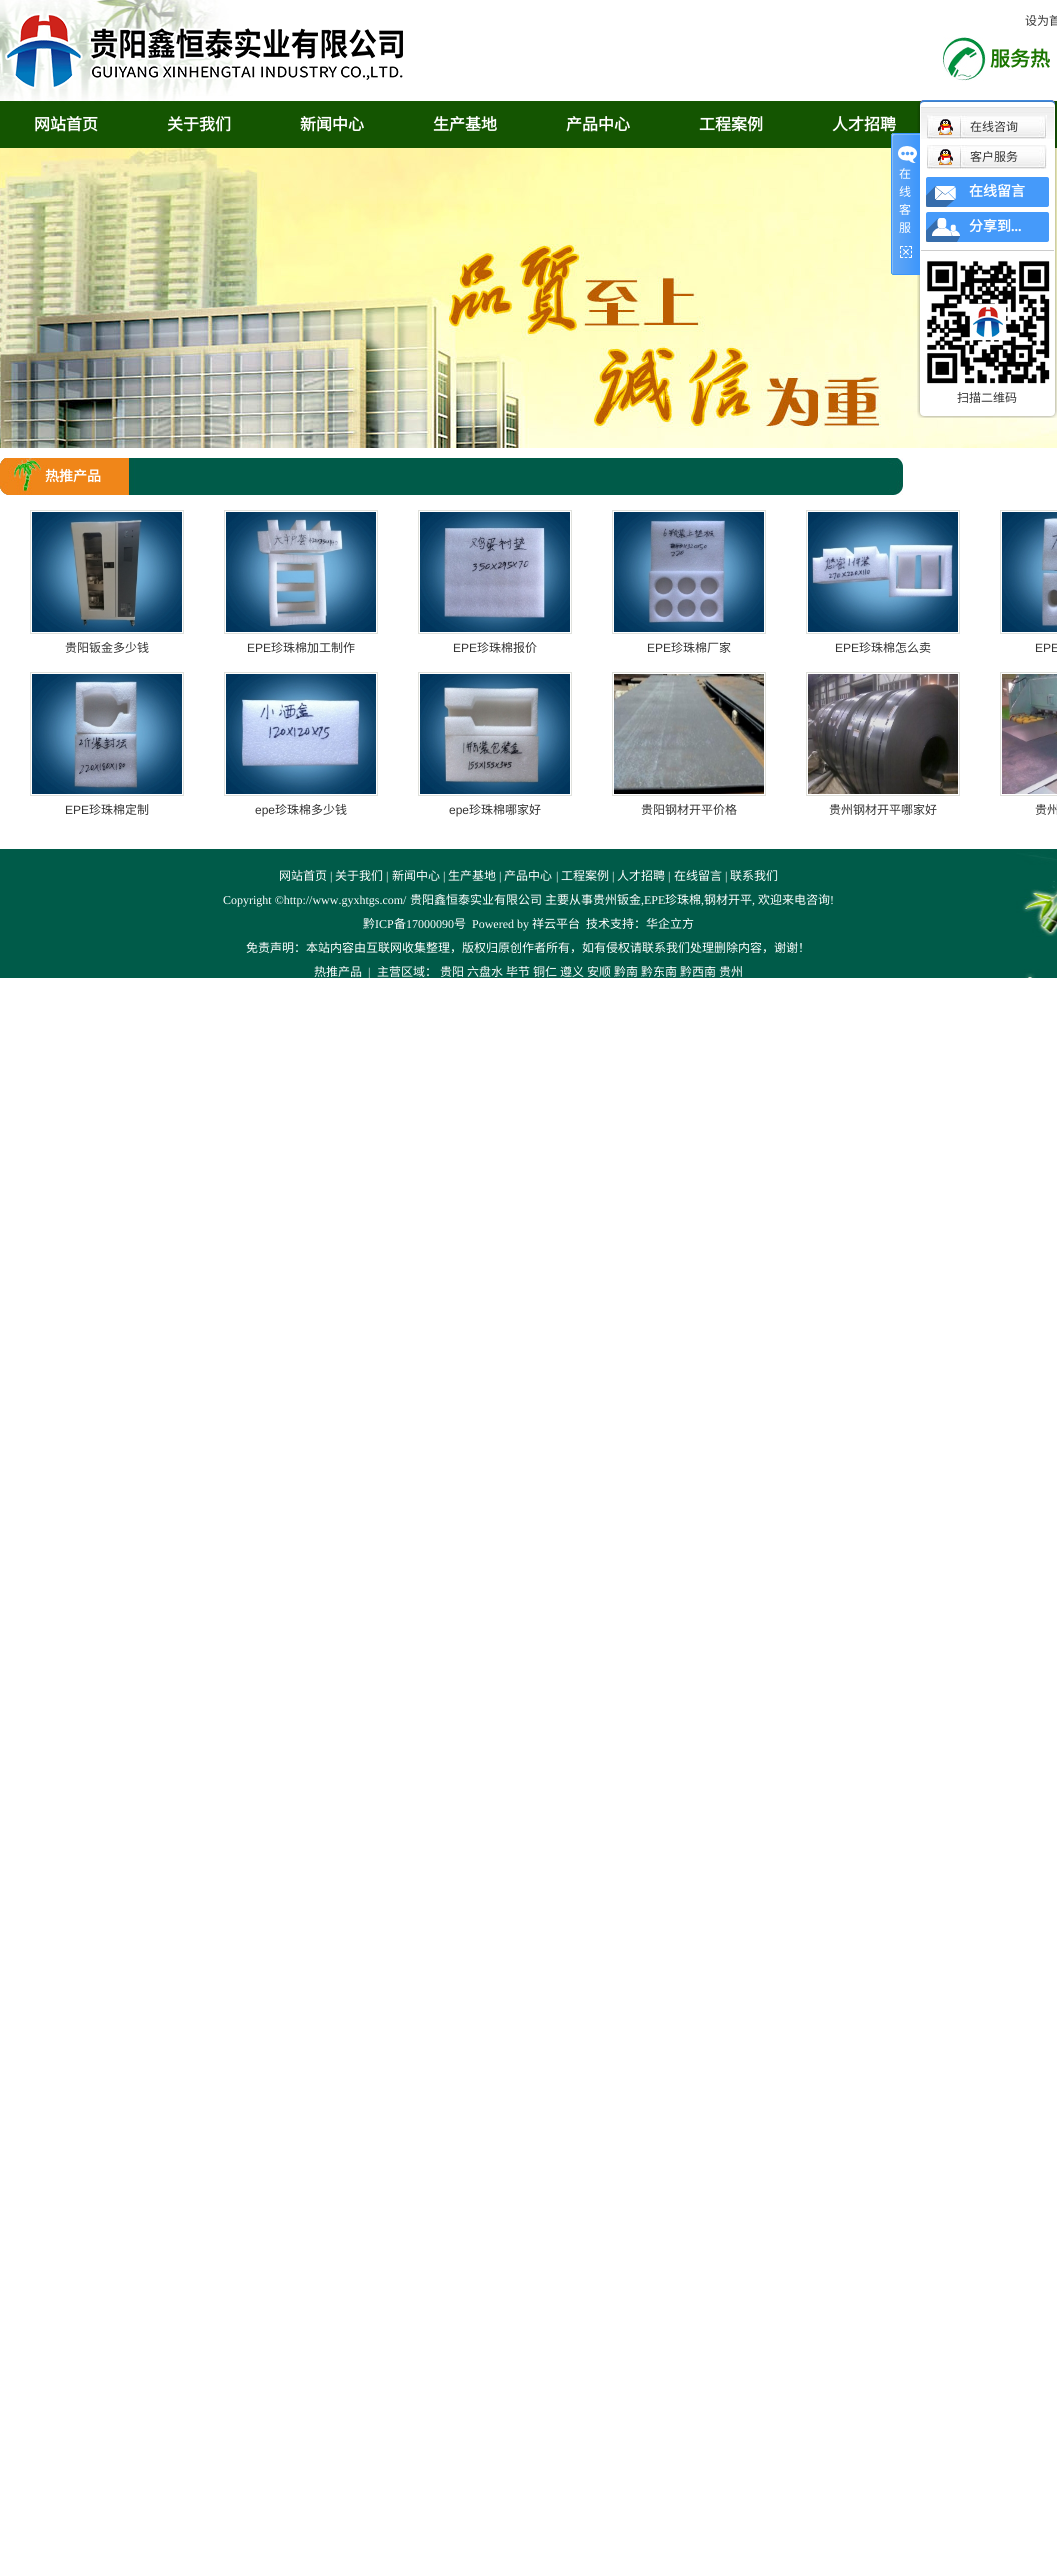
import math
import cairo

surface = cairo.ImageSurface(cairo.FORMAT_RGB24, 1057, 2560)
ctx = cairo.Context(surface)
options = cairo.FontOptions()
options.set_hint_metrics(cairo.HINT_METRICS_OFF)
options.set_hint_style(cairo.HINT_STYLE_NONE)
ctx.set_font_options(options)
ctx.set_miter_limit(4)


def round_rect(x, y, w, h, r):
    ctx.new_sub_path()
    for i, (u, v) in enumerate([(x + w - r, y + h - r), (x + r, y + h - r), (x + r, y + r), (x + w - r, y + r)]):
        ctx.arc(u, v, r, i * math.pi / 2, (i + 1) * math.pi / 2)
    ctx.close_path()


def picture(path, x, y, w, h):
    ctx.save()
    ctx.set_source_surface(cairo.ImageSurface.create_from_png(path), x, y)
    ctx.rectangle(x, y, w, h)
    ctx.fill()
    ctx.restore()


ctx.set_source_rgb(1, 1, 1)
ctx.paint()
picture("img1.png", 0, 0, 1057, 148)
picture("img2.png", 0, 11, 403, 78)
ctx.select_font_face("Noto Sans CJK SC")
ctx.set_font_size(12)
ctx.set_source_rgb(0.2, 0.2, 0.2)
ctx.move_to(1025, 25)
ctx.show_text("设为首")
picture("img3.png", 943, 37, 43, 44)
ctx.select_font_face("Noto Sans CJK SC", cairo.FONT_SLANT_NORMAL, cairo.FONT_WEIGHT_BOLD)
ctx.set_font_size(20)
ctx.set_source_rgb(0.102, 0.463, 0)
ctx.move_to(990, 66)
ctx.show_text("服务热")
ctx.set_font_size(16)
ctx.set_source_rgb(1, 1, 1)
ctx.move_to(34, 130)
ctx.show_text("网站首页")
ctx.move_to(167, 130)
ctx.show_text("关于我们")
ctx.move_to(300, 130)
ctx.show_text("新闻中心")
ctx.move_to(433, 130)
ctx.show_text("生产基地")
ctx.move_to(566, 130)
ctx.show_text("产品中心")
ctx.move_to(699, 130)
ctx.show_text("工程案例")
ctx.move_to(832, 130)
ctx.show_text("人才招聘")
picture("img15.png", 0, 148, 1057, 300)
picture("img7.png", 917, 107, 140, 303)
picture("img4.png", 891, 133, 29, 142)
ctx.select_font_face("Noto Sans CJK SC")
ctx.set_font_size(12)
ctx.move_to(899, 178)
ctx.show_text("在")
ctx.move_to(899, 196)
ctx.show_text("线")
ctx.move_to(899, 214)
ctx.show_text("客")
ctx.move_to(899, 232)
ctx.show_text("服")
picture("img5.png", 900, 246, 12, 12)
picture("img6.png", 917, 100, 140, 7)
picture("img8.png", 921, 107, 133, 32)
picture("img9.png", 927, 115, 120, 24)
picture("img10.png", 938, 119, 15, 16)
ctx.set_source_rgb(0.2, 0.2, 0.2)
ctx.move_to(970, 131)
ctx.show_text("在线咨询")
picture("img9.png", 927, 145, 120, 24)
picture("img10.png", 938, 149, 15, 16)
ctx.move_to(970, 161)
ctx.show_text("客户服务")
ctx.set_source_rgb(0.271, 0.604, 0.98)
round_rect(926, 177, 123, 30, 2)
ctx.fill()
picture("img11.png", 926, 186, 30, 21)
ctx.select_font_face("Noto Sans CJK SC", cairo.FONT_SLANT_NORMAL, cairo.FONT_WEIGHT_BOLD)
ctx.set_font_size(14)
ctx.set_source_rgb(1, 1, 1)
ctx.move_to(969, 196)
ctx.show_text("在线留言")
ctx.set_source_rgb(0.271, 0.604, 0.98)
round_rect(926, 212, 123, 30, 2)
ctx.fill()
picture("img12.png", 926, 218, 34, 24)
ctx.set_source_rgb(1, 1, 1)
ctx.move_to(969, 231)
ctx.show_text("分享到")
ctx.select_font_face("Liberation Serif", cairo.FONT_SLANT_NORMAL, cairo.FONT_WEIGHT_BOLD)
ctx.move_to(1011, 231)
ctx.show_text("...")
ctx.set_source_rgb(0.8, 0.8, 0.8)
ctx.rectangle(921, 250, 133, 1)
ctx.fill()
picture("img13.png", 927, 261, 123, 123)
ctx.select_font_face("Noto Sans CJK SC")
ctx.set_font_size(12)
ctx.set_source_rgb(0.2, 0.2, 0.2)
ctx.move_to(957, 402)
ctx.show_text("扫描二维码")
picture("img14.png", 917, 410, 140, 8)
picture("img16.png", 0, 458, 903, 37)
ctx.select_font_face("Noto Sans CJK SC", cairo.FONT_SLANT_NORMAL, cairo.FONT_WEIGHT_BOLD)
ctx.set_font_size(14)
ctx.set_source_rgb(1, 1, 1)
ctx.move_to(45, 481)
ctx.show_text("热推产品")
ctx.rectangle(30.5, 510.5, 153, 123)
ctx.set_source_rgb(0.878, 0.882, 0.863)
ctx.set_line_width(1)
ctx.stroke()
picture("img17.png", 32, 512, 150, 120)
ctx.select_font_face("Noto Sans CJK SC")
ctx.set_font_size(12)
ctx.set_source_rgb(0.2, 0.2, 0.2)
ctx.move_to(65, 652)
ctx.show_text("贵阳钣金多少钱")
ctx.rectangle(224.5, 510.5, 153, 123)
ctx.set_source_rgb(0.878, 0.882, 0.863)
ctx.stroke()
picture("img18.png", 226, 512, 150, 120)
ctx.select_font_face("Liberation Sans")
ctx.set_source_rgb(0.2, 0.2, 0.2)
ctx.move_to(247, 652)
ctx.show_text("EPE")
ctx.select_font_face("Noto Sans CJK SC")
ctx.move_to(271, 652)
ctx.show_text("珍珠棉加工制作")
ctx.rectangle(418.5, 510.5, 153, 123)
ctx.set_source_rgb(0.878, 0.882, 0.863)
ctx.stroke()
picture("img19.png", 420, 512, 150, 120)
ctx.select_font_face("Liberation Sans")
ctx.set_source_rgb(0.2, 0.2, 0.2)
ctx.move_to(453, 652)
ctx.show_text("EPE")
ctx.select_font_face("Noto Sans CJK SC")
ctx.move_to(477, 652)
ctx.show_text("珍珠棉报价")
ctx.rectangle(612.5, 510.5, 153, 123)
ctx.set_source_rgb(0.878, 0.882, 0.863)
ctx.stroke()
picture("img20.png", 614, 512, 150, 120)
ctx.select_font_face("Liberation Sans")
ctx.set_source_rgb(0.2, 0.2, 0.2)
ctx.move_to(647, 652)
ctx.show_text("EPE")
ctx.select_font_face("Noto Sans CJK SC")
ctx.move_to(671, 652)
ctx.show_text("珍珠棉厂家")
ctx.rectangle(806.5, 510.5, 153, 123)
ctx.set_source_rgb(0.878, 0.882, 0.863)
ctx.stroke()
picture("img21.png", 808, 512, 150, 120)
ctx.select_font_face("Liberation Sans")
ctx.set_source_rgb(0.2, 0.2, 0.2)
ctx.move_to(835, 652)
ctx.show_text("EPE")
ctx.select_font_face("Noto Sans CJK SC")
ctx.move_to(859, 652)
ctx.show_text("珍珠棉怎么卖")
ctx.rectangle(1000.5, 510.5, 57, 123)
ctx.set_source_rgb(0.878, 0.882, 0.863)
ctx.stroke()
picture("img22.png", 1002, 512, 55, 120)
ctx.select_font_face("Liberation Sans")
ctx.set_source_rgb(0.2, 0.2, 0.2)
ctx.move_to(1035, 652)
ctx.show_text("EPE")
ctx.rectangle(30.5, 672.5, 153, 123)
ctx.set_source_rgb(0.878, 0.882, 0.863)
ctx.stroke()
picture("img23.png", 32, 674, 150, 120)
ctx.set_source_rgb(0.2, 0.2, 0.2)
ctx.move_to(65, 814)
ctx.show_text("EPE")
ctx.select_font_face("Noto Sans CJK SC")
ctx.move_to(89, 814)
ctx.show_text("珍珠棉定制")
ctx.rectangle(224.5, 672.5, 153, 123)
ctx.set_source_rgb(0.878, 0.882, 0.863)
ctx.stroke()
picture("img24.png", 226, 674, 150, 120)
ctx.select_font_face("Liberation Sans")
ctx.set_source_rgb(0.2, 0.2, 0.2)
ctx.move_to(255, 814)
ctx.show_text("epe")
ctx.select_font_face("Noto Sans CJK SC")
ctx.move_to(275, 814)
ctx.show_text("珍珠棉多少钱")
ctx.rectangle(418.5, 672.5, 153, 123)
ctx.set_source_rgb(0.878, 0.882, 0.863)
ctx.stroke()
picture("img25.png", 420, 674, 150, 120)
ctx.select_font_face("Liberation Sans")
ctx.set_source_rgb(0.2, 0.2, 0.2)
ctx.move_to(449, 814)
ctx.show_text("epe")
ctx.select_font_face("Noto Sans CJK SC")
ctx.move_to(469, 814)
ctx.show_text("珍珠棉哪家好")
ctx.rectangle(612.5, 672.5, 153, 123)
ctx.set_source_rgb(0.878, 0.882, 0.863)
ctx.stroke()
picture("img26.png", 614, 674, 150, 120)
ctx.set_source_rgb(0.2, 0.2, 0.2)
ctx.move_to(641, 814)
ctx.show_text("贵阳钢材开平价格")
ctx.rectangle(806.5, 672.5, 153, 123)
ctx.set_source_rgb(0.878, 0.882, 0.863)
ctx.stroke()
picture("img27.png", 808, 674, 150, 120)
ctx.set_source_rgb(0.2, 0.2, 0.2)
ctx.move_to(829, 814)
ctx.show_text("贵州钢材开平哪家好")
ctx.rectangle(1000.5, 672.5, 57, 123)
ctx.set_source_rgb(0.878, 0.882, 0.863)
ctx.stroke()
picture("img28.png", 1002, 674, 55, 120)
ctx.set_source_rgb(0.2, 0.2, 0.2)
ctx.move_to(1035, 814)
ctx.show_text("贵州")
picture("img29.png", 0, 849, 1057, 129)
ctx.set_source_rgb(1, 1, 1)
ctx.move_to(279, 880)
ctx.show_text("网站首页")
ctx.select_font_face("Liberation Serif")
ctx.move_to(330, 880)
ctx.show_text("|")
ctx.select_font_face("Noto Sans CJK SC")
ctx.move_to(335, 880)
ctx.show_text("关于我们")
ctx.select_font_face("Liberation Serif")
ctx.move_to(386, 880)
ctx.show_text("|")
ctx.select_font_face("Noto Sans CJK SC")
ctx.move_to(392, 880)
ctx.show_text("新闻中心")
ctx.select_font_face("Liberation Serif")
ctx.move_to(443, 880)
ctx.show_text("|")
ctx.select_font_face("Noto Sans CJK SC")
ctx.move_to(448, 880)
ctx.show_text("生产基地")
ctx.select_font_face("Liberation Serif")
ctx.move_to(499, 880)
ctx.show_text("|")
ctx.select_font_face("Noto Sans CJK SC")
ctx.move_to(504, 880)
ctx.show_text("产品中心")
ctx.select_font_face("Liberation Serif")
ctx.move_to(556, 880)
ctx.show_text("|")
ctx.select_font_face("Noto Sans CJK SC")
ctx.move_to(561, 880)
ctx.show_text("工程案例")
ctx.select_font_face("Liberation Serif")
ctx.move_to(612, 880)
ctx.show_text("|")
ctx.select_font_face("Noto Sans CJK SC")
ctx.move_to(617, 880)
ctx.show_text("人才招聘")
ctx.select_font_face("Liberation Serif")
ctx.move_to(668, 880)
ctx.show_text("|")
ctx.select_font_face("Noto Sans CJK SC")
ctx.move_to(674, 880)
ctx.show_text("在线留言")
ctx.select_font_face("Liberation Serif")
ctx.move_to(725, 880)
ctx.show_text("|")
ctx.select_font_face("Noto Sans CJK SC")
ctx.move_to(730, 880)
ctx.show_text("联系我们")
ctx.select_font_face("Liberation Serif")
ctx.move_to(223, 904)
ctx.show_text("Copyright ©http://www.gyxhtgs.com/")
ctx.select_font_face("Noto Sans CJK SC")
ctx.move_to(410, 904)
ctx.show_text("贵阳鑫恒泰实业有限公司")
ctx.move_to(545, 904)
ctx.show_text("主要从事贵州钣金")
ctx.select_font_face("Liberation Serif")
ctx.move_to(641, 904)
ctx.show_text(",EPE")
ctx.select_font_face("Noto Sans CJK SC")
ctx.move_to(665, 904)
ctx.show_text("珍珠棉")
ctx.select_font_face("Liberation Serif")
ctx.move_to(701, 904)
ctx.show_text(",")
ctx.select_font_face("Noto Sans CJK SC")
ctx.move_to(704, 904)
ctx.show_text("钢材开平")
ctx.select_font_face("Liberation Serif")
ctx.move_to(752, 904)
ctx.show_text(",")
ctx.select_font_face("Noto Sans CJK SC")
ctx.move_to(758, 904)
ctx.show_text("欢迎来电咨询")
ctx.select_font_face("Liberation Serif")
ctx.move_to(830, 904)
ctx.show_text("!")
ctx.select_font_face("Noto Sans CJK SC")
ctx.move_to(363, 928)
ctx.show_text("黔")
ctx.select_font_face("Liberation Serif")
ctx.move_to(375, 928)
ctx.show_text("ICP")
ctx.select_font_face("Noto Sans CJK SC")
ctx.move_to(394, 928)
ctx.show_text("备")
ctx.select_font_face("Liberation Serif")
ctx.move_to(406, 928)
ctx.show_text("17000090")
ctx.select_font_face("Noto Sans CJK SC")
ctx.move_to(454, 928)
ctx.show_text("号")
ctx.select_font_face("Liberation Serif")
ctx.move_to(472, 928)
ctx.show_text("Powered by")
ctx.select_font_face("Noto Sans CJK SC")
ctx.move_to(532, 928)
ctx.show_text("祥云平台")
ctx.move_to(586, 928)
ctx.show_text("技术支持：华企立方")
ctx.move_to(246, 952)
ctx.show_text("免责声明：本站内容由互联网收集整理，版权归原创作者所有，如有侵权请联系我们处理删除内容，谢谢！")
ctx.move_to(314, 976)
ctx.show_text("热推产品")
ctx.select_font_face("Liberation Serif")
ctx.move_to(368, 976)
ctx.show_text("|")
ctx.select_font_face("Noto Sans CJK SC")
ctx.move_to(377, 976)
ctx.show_text("主营区域：")
ctx.move_to(440, 976)
ctx.show_text("贵阳")
ctx.move_to(467, 976)
ctx.show_text("六盘水")
ctx.move_to(506, 976)
ctx.show_text("毕节")
ctx.move_to(533, 976)
ctx.show_text("铜仁")
ctx.move_to(560, 976)
ctx.show_text("遵义")
ctx.move_to(587, 976)
ctx.show_text("安顺")
ctx.move_to(614, 976)
ctx.show_text("黔南")
ctx.move_to(641, 976)
ctx.show_text("黔东南")
ctx.move_to(680, 976)
ctx.show_text("黔西南")
ctx.move_to(719, 976)
ctx.show_text("贵州")
surface.write_to_png("page.png")
